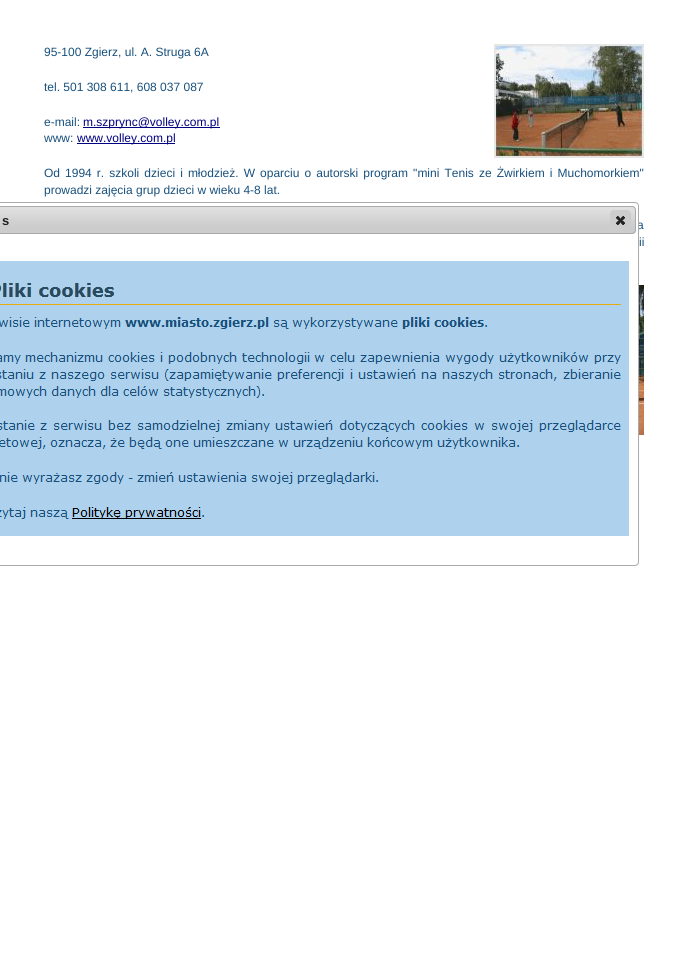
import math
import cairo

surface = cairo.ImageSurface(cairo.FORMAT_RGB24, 688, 960)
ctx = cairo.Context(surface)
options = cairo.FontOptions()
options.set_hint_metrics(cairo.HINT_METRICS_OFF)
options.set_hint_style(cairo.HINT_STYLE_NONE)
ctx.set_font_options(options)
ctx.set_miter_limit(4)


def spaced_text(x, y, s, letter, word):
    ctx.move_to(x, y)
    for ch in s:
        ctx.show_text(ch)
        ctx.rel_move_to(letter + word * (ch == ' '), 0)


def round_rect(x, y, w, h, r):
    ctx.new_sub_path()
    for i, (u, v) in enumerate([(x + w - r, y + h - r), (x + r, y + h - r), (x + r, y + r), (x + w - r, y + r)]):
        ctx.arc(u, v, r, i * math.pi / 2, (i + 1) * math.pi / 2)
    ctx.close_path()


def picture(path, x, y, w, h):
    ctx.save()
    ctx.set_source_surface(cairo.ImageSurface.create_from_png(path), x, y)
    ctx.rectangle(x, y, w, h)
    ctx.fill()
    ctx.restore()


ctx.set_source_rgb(1, 1, 1)
ctx.paint()
ctx.select_font_face("Liberation Sans")
ctx.set_font_size(12)
ctx.set_source_rgb(0.094, 0.314, 0.486)
spaced_text(637, 229, "a", 0, 3)
ctx.set_source_rgb(1, 1, 1)
round_rect(-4.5, 202.5, 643, 363, 3.5)
ctx.fill_preserve()
ctx.set_source_rgb(0.667, 0.667, 0.667)
ctx.set_line_width(1)
ctx.stroke()
picture("img1.png", 0, 206, 636, 28)
round_rect(-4.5, 206.5, 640, 27, 3.5)
ctx.stroke()
ctx.select_font_face("Liberation Sans", cairo.FONT_SLANT_NORMAL, cairo.FONT_WEIGHT_BOLD)
ctx.set_font_size(13)
ctx.set_source_rgb(0.133, 0.133, 0.133)
ctx.move_to(2, 225)
ctx.show_text("s")
ctx.set_source_rgb(0.8, 0.8, 0.8)
round_rect(610, 210, 21, 20, 4)
ctx.fill()
picture("img2.png", 616, 216, 9, 9)
picture("img3.png", 0, 261, 629, 275)
ctx.select_font_face("Liberation Sans")
ctx.set_font_size(12)
ctx.set_source_rgb(0.094, 0.314, 0.486)
ctx.move_to(44, 56)
ctx.show_text("95-100 Zgierz, ul. A. Struga 6A")
picture("img4.png", 494, 44, 150, 114)
ctx.move_to(44, 91)
ctx.show_text("tel. 501 308 611, 608 037 087")
ctx.move_to(44, 126)
ctx.show_text("e-mail:")
ctx.set_source_rgb(0, 0, 0.502)
ctx.rectangle(83, 127, 137, 1)
ctx.fill()
ctx.move_to(83, 126)
ctx.show_text("m.szprync@volley.com.pl")
ctx.set_source_rgb(0.094, 0.314, 0.486)
ctx.move_to(44, 142)
ctx.show_text("www:")
ctx.set_source_rgb(0, 0, 0.502)
ctx.rectangle(77, 143, 98, 1)
ctx.fill()
ctx.move_to(77, 142)
ctx.show_text("www.volley.com.pl")
ctx.set_source_rgb(0.094, 0.314, 0.486)
spaced_text(44, 177, "Od 1994 r. szkoli dzieci i młodzież. W oparciu o autorski program \"mini Tenis ze Żwirkiem i Muchomorkiem\"", 0, 1.75)
ctx.move_to(44, 194)
ctx.show_text("prowadzi zajęcia grup dzieci w wieku 4-8 lat.")
spaced_text(639, 246, "ii", 0, 4)
picture("img5.png", 639, 285, 5, 150)
surface.write_to_png("page.png")
